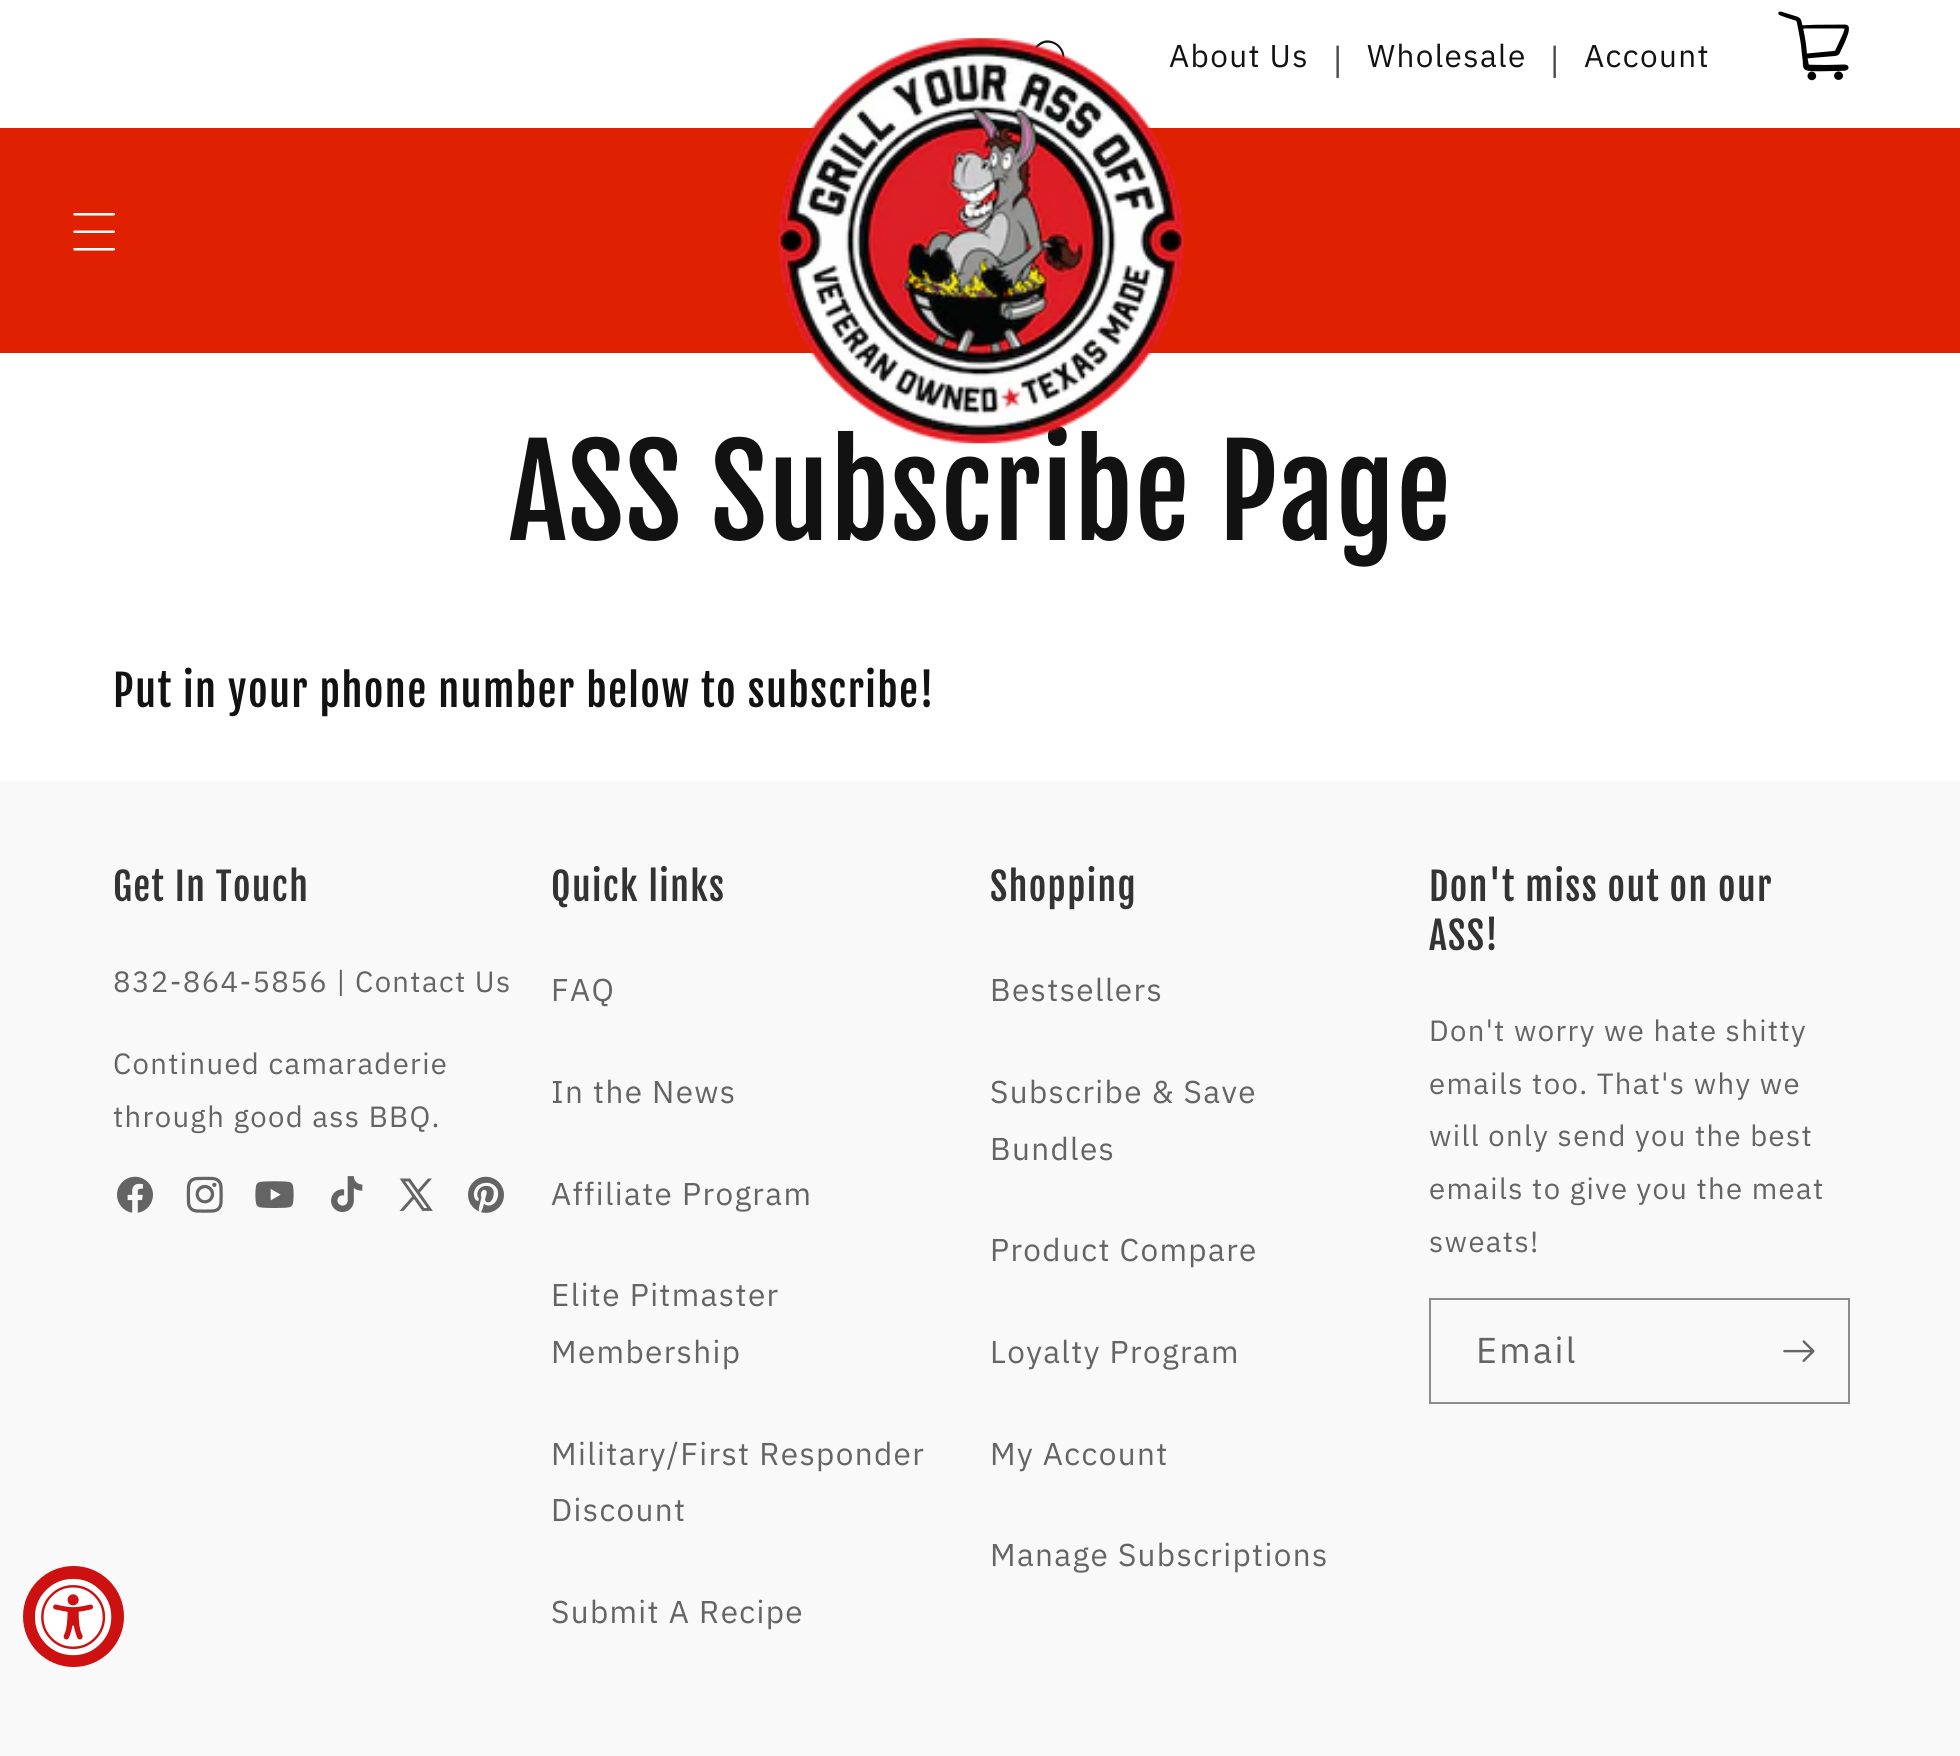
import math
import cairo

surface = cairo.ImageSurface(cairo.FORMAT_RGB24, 1960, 1756)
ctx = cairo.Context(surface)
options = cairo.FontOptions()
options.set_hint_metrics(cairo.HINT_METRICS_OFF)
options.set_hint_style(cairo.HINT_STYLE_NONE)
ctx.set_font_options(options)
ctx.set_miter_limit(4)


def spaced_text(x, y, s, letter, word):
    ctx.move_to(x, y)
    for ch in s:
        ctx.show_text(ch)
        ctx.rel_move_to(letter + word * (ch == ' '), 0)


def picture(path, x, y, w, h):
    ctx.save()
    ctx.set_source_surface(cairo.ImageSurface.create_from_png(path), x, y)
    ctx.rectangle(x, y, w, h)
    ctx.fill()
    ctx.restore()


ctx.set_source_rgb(1, 1, 1)
ctx.paint()
ctx.set_source_rgb(0.875, 0.129, 0.004)
ctx.rectangle(0, 128, 1960, 225)
ctx.fill()
picture("img1.png", 73, 213, 42, 38)
ctx.set_source_rgb(0.071, 0.071, 0.071)
ctx.set_fill_rule(cairo.FILL_RULE_EVEN_ODD)
ctx.new_path()
ctx.move_to(1058, 66)
ctx.curve_to(1045, 79, 1026, 59, 1038, 47)
ctx.curve_to(1051, 34, 1071, 53, 1058, 66)
ctx.move_to(1058, 69)
ctx.curve_to(1043, 82, 1022, 59, 1037, 45)
ctx.curve_to(1051, 31, 1074, 52, 1060, 67)
ctx.line_to(1073, 80)
ctx.curve_to(1074, 82, 1072, 82, 1071, 81)
ctx.close_path()
ctx.fill()
ctx.select_font_face("IBM Plex Sans")
ctx.set_font_size(31.5)
spaced_text(1169, 67, "About Us", 1.35, 0)
ctx.select_font_face("Fjalla One")
ctx.set_font_size(122.75)
spaced_text(509, 540, "ASS Subscribe Page", 1.4, 0)
picture("img2.png", 778, 38, 406, 406)
ctx.select_font_face("IBM Plex Sans")
ctx.set_font_size(36)
ctx.set_source_rgb(0.302, 0.302, 0.302)
spaced_text(1332, 73, "|", 1.35, 0)
ctx.set_font_size(31.5)
ctx.set_source_rgb(0.071, 0.071, 0.071)
spaced_text(1367, 67, "Wholesale", 1.35, 0)
ctx.set_font_size(36)
ctx.set_source_rgb(0.302, 0.302, 0.302)
spaced_text(1549, 73, "|", 1.35, 0)
ctx.set_font_size(31.5)
ctx.set_source_rgb(0.071, 0.071, 0.071)
spaced_text(1584, 67, "Account", 1.35, 0)
picture("img3.png", 1778, 11, 71, 70)
ctx.select_font_face("Fjalla One")
ctx.set_font_size(42.5)
spaced_text(113, 707, "Put in your phone number below to subscribe!", 1.4, 0)
ctx.set_source_rgb(0.973, 0.973, 0.973)
ctx.rectangle(0, 781, 1960, 975)
ctx.fill()
ctx.set_source_rgb(0.804, 0.067, 0.063)
ctx.arc(73.5, 1616.5, 50.5, 0, 2 * math.pi)
ctx.fill()
picture("img4.png", 35, 1578, 77, 78)
ctx.set_font_size(37.75)
ctx.set_source_rgb(0.2, 0.2, 0.2)
spaced_text(113, 901, "Get In Touch", 1.4, 0)
ctx.select_font_face("IBM Plex Sans")
ctx.set_font_size(29.25)
ctx.set_source_rgb(0.392, 0.392, 0.392)
spaced_text(113, 992, "832-864-5856 | Contact Us", 1.35, 0)
spaced_text(113, 1074, "Continued camaraderie", 1.35, 0)
spaced_text(113, 1127, "through good ass BBQ.", 1.35, 0)
picture("img5.png", 117, 1176, 36, 37)
picture("img6.png", 186, 1176, 37, 37)
picture("img7.png", 255, 1181, 39, 27)
picture("img8.png", 331, 1176, 32, 37)
picture("img9.png", 399, 1178, 34, 33)
picture("img10.png", 468, 1176, 36, 37)
ctx.select_font_face("Fjalla One")
ctx.set_font_size(37.75)
ctx.set_source_rgb(0.2, 0.2, 0.2)
spaced_text(551, 901, "Quick links", 1.4, 0)
ctx.select_font_face("IBM Plex Sans")
ctx.set_font_size(31.5)
ctx.set_source_rgb(0.392, 0.392, 0.392)
spaced_text(551, 1001, "FAQ", 1.35, 0)
spaced_text(551, 1103, "In the News", 1.35, 0)
spaced_text(551, 1205, "Affiliate Program", 1.35, 0)
spaced_text(551, 1306, "Elite Pitmaster", 1.35, 0)
spaced_text(551, 1363, "Membership", 1.35, 0)
spaced_text(551, 1465, "Military/First Responder", 1.35, 0)
spaced_text(551, 1521, "Discount", 1.35, 0)
spaced_text(551, 1623, "Submit A Recipe", 1.35, 0)
ctx.select_font_face("Fjalla One")
ctx.set_font_size(37.75)
ctx.set_source_rgb(0.2, 0.2, 0.2)
spaced_text(990, 901, "Shopping", 1.4, 0)
ctx.select_font_face("IBM Plex Sans")
ctx.set_font_size(31.5)
ctx.set_source_rgb(0.392, 0.392, 0.392)
spaced_text(990, 1001, "Bestsellers", 1.35, 0)
spaced_text(990, 1103, "Subscribe & Save", 1.35, 0)
spaced_text(990, 1160, "Bundles", 1.35, 0)
spaced_text(990, 1261, "Product Compare", 1.35, 0)
spaced_text(990, 1363, "Loyalty Program", 1.35, 0)
spaced_text(990, 1465, "My Account", 1.35, 0)
spaced_text(990, 1566, "Manage Subscriptions", 1.35, 0)
ctx.select_font_face("Fjalla One")
ctx.set_font_size(37.75)
ctx.set_source_rgb(0.2, 0.2, 0.2)
spaced_text(1429, 901, "Don't miss out on our", 1.4, 0)
spaced_text(1429, 950, "ASS!", 1.4, 0)
ctx.select_font_face("IBM Plex Sans")
ctx.set_font_size(29.25)
ctx.set_source_rgb(0.392, 0.392, 0.392)
spaced_text(1429, 1041, "Don't worry we hate shitty", 1.35, 0)
spaced_text(1429, 1094, "emails too. That's why we", 1.35, 0)
spaced_text(1429, 1146, "will only send you the best", 1.35, 0)
spaced_text(1429, 1199, "emails to give you the meat", 1.35, 0)
spaced_text(1429, 1252, "sweats!", 1.35, 0)
ctx.rectangle(1430, 1299, 419, 104)
ctx.set_source_rgb(0.549, 0.549, 0.549)
ctx.stroke()
ctx.set_font_size(36)
ctx.set_source_rgb(0.392, 0.392, 0.392)
spaced_text(1476, 1363, "Email", 2.25, 0)
picture("img11.png", 1783, 1340, 32, 22)
surface.write_to_png("page.png")
